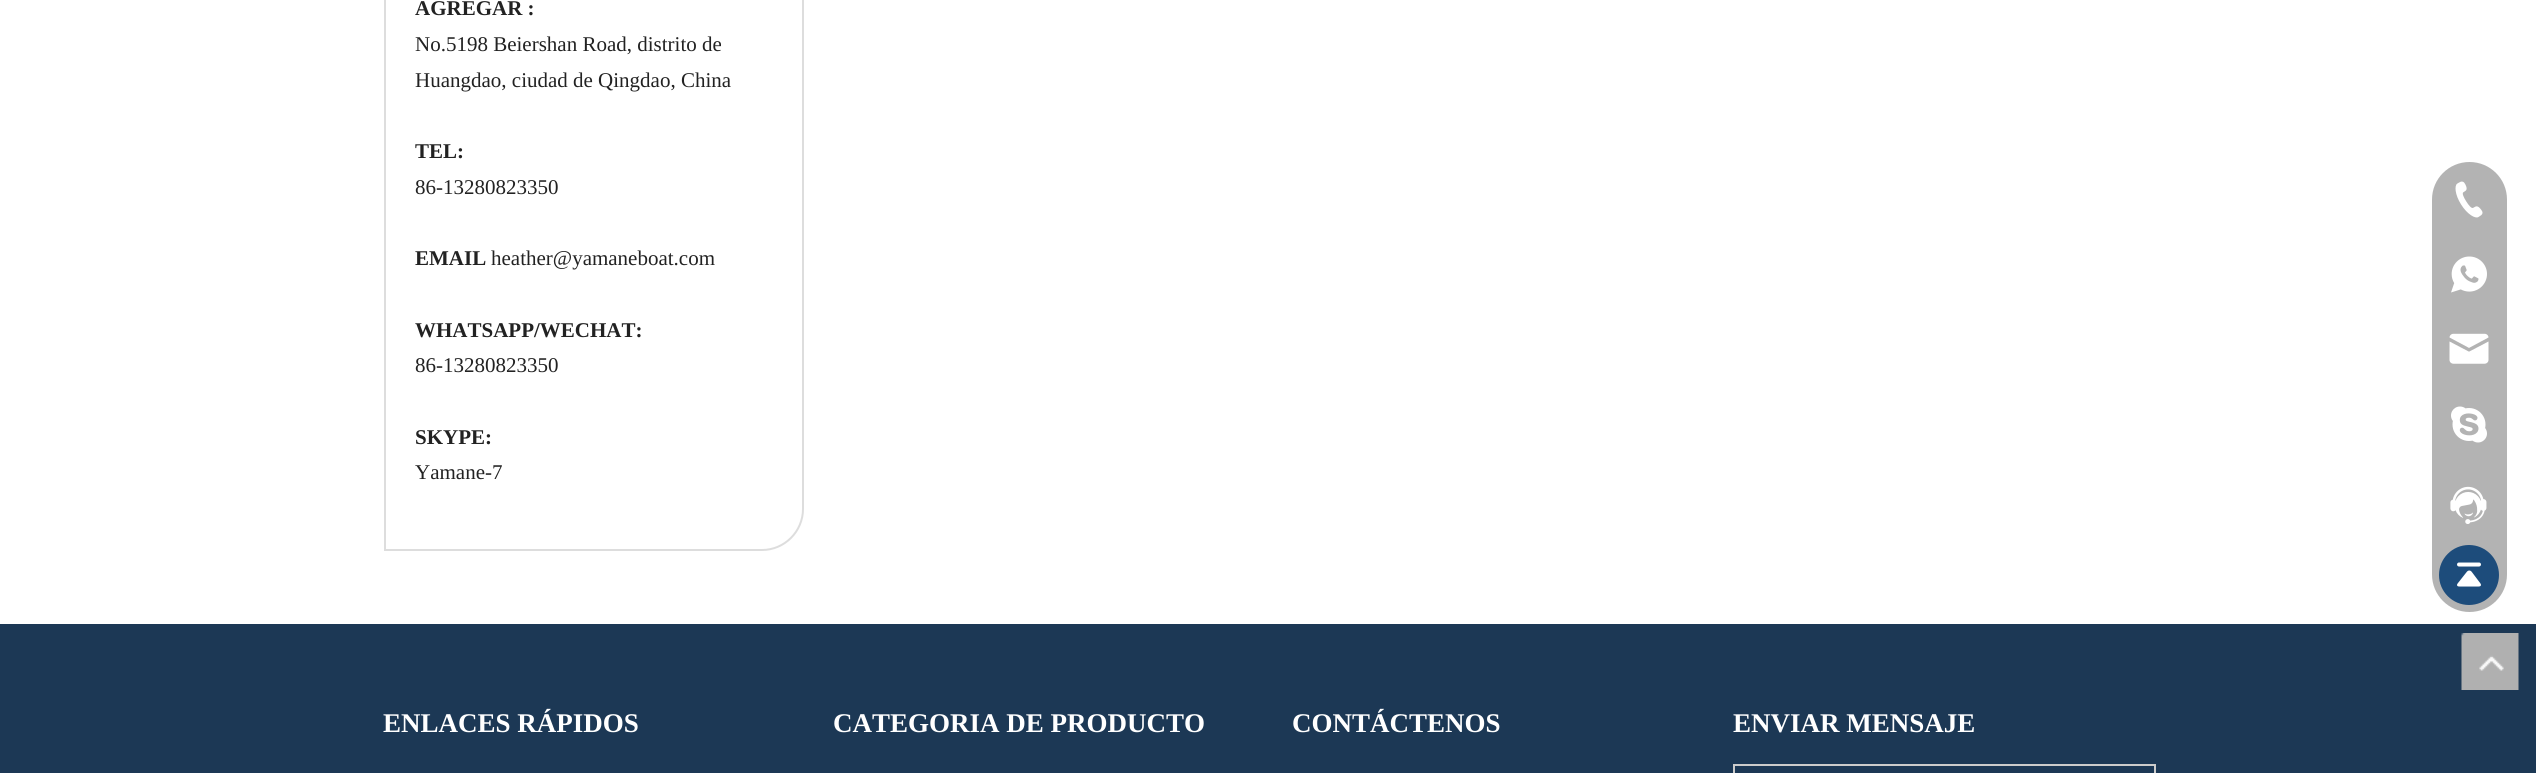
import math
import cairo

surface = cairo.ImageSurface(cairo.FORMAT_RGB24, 2536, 773)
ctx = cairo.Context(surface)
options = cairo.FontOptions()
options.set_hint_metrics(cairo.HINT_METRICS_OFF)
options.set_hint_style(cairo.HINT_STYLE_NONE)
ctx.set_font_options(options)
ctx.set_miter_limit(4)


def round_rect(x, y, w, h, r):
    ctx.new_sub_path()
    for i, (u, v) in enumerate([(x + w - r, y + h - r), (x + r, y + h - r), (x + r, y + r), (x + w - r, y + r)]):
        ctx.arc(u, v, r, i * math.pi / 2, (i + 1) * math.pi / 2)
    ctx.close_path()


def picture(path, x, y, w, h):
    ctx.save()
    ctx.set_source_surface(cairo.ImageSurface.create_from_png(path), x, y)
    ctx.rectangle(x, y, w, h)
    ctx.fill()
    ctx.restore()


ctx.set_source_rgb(1, 1, 1)
ctx.paint()
ctx.new_path()
ctx.move_to(426, -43)
ctx.line_to(803, -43)
ctx.line_to(803, 509)
ctx.curve_to(803, 531.5, 784.5, 550, 762, 550)
ctx.line_to(385, 550)
ctx.line_to(385, -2)
ctx.curve_to(385, -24.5, 403.5, -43, 426, -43)
ctx.close_path()
ctx.set_source_rgb(0.867, 0.867, 0.867)
ctx.stroke()
ctx.select_font_face("Liberation Serif", cairo.FONT_SLANT_NORMAL, cairo.FONT_WEIGHT_BOLD)
ctx.set_font_size(21)
ctx.set_source_rgb(0.133, 0.133, 0.133)
ctx.move_to(415, 15)
ctx.show_text("AGREGAR :")
ctx.select_font_face("Liberation Serif")
ctx.move_to(415, 51)
ctx.show_text("No.5198 Beiershan Road, distrito de")
ctx.move_to(415, 87)
ctx.show_text("Huangdao, ciudad de Qingdao, China")
ctx.select_font_face("Liberation Serif", cairo.FONT_SLANT_NORMAL, cairo.FONT_WEIGHT_BOLD)
ctx.move_to(415, 158)
ctx.show_text("TEL:")
ctx.select_font_face("Liberation Serif")
ctx.move_to(415, 194)
ctx.show_text("86-13280823350")
ctx.select_font_face("Liberation Serif", cairo.FONT_SLANT_NORMAL, cairo.FONT_WEIGHT_BOLD)
ctx.move_to(415, 265)
ctx.show_text("EMAIL")
ctx.select_font_face("Liberation Serif")
ctx.move_to(491, 265)
ctx.show_text("heather@yamaneboat.com")
ctx.select_font_face("Liberation Serif", cairo.FONT_SLANT_NORMAL, cairo.FONT_WEIGHT_BOLD)
ctx.move_to(415, 337)
ctx.show_text("WHATSAPP/WECHAT:")
ctx.select_font_face("Liberation Serif")
ctx.move_to(415, 372)
ctx.show_text("86-13280823350")
ctx.select_font_face("Liberation Serif", cairo.FONT_SLANT_NORMAL, cairo.FONT_WEIGHT_BOLD)
ctx.move_to(415, 444)
ctx.show_text("SKYPE:")
ctx.select_font_face("Liberation Serif")
ctx.move_to(415, 479)
ctx.show_text("Yamane-7")
ctx.set_source_rgb(0.11, 0.22, 0.333)
ctx.rectangle(0, 624, 2536, 149)
ctx.fill()
picture("img1.png", 2461, 633, 58, 57)
ctx.set_source_rgb(0.702, 0.702, 0.702)
round_rect(2432, 162, 75, 450, 37.5)
ctx.fill()
picture("img2.png", 2455, 181, 28, 37)
picture("img3.png", 2451, 256, 36, 37)
picture("img4.png", 2449, 333, 40, 31)
picture("img5.png", 2451, 406, 36, 37)
picture("img6.png", 2450, 486, 37, 38)
ctx.set_source_rgb(0.114, 0.298, 0.482)
ctx.arc(2469, 575, 30, 0, 2 * math.pi)
ctx.fill()
picture("img7.png", 2457, 562, 24, 25)
ctx.select_font_face("Liberation Serif", cairo.FONT_SLANT_NORMAL, cairo.FONT_WEIGHT_BOLD)
ctx.set_font_size(27)
ctx.set_source_rgb(1, 1, 1)
ctx.move_to(383, 732)
ctx.show_text("ENLACES RÁPIDOS")
ctx.move_to(833, 732)
ctx.show_text("CATEGORIA DE PRODUCTO")
ctx.move_to(1292, 732)
ctx.show_text("CONTÁCTENOS")
ctx.move_to(1733, 732)
ctx.show_text("ENVIAR MENSAJE")
ctx.rectangle(1734, 765, 421, 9)
ctx.set_source_rgb(0.8, 0.8, 0.8)
ctx.stroke()
surface.write_to_png("page.png")
